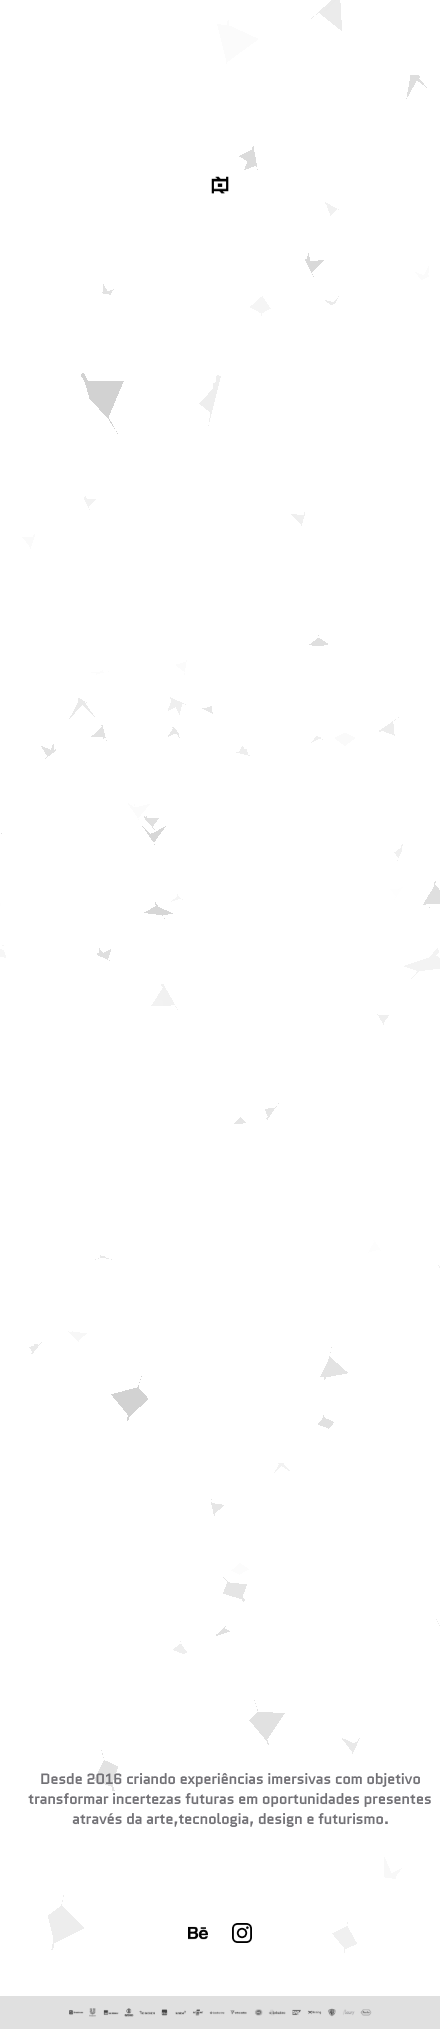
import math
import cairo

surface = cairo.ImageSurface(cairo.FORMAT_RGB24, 440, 2029)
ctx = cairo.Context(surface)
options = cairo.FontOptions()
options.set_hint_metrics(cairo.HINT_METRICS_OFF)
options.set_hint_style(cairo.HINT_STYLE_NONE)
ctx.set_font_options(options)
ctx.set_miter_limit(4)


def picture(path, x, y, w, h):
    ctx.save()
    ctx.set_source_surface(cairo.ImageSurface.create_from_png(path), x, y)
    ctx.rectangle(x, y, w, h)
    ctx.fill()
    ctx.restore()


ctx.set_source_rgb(1, 1, 1)
ctx.paint()
picture("img1.png", 0, 0, 440, 1996)
picture("img2.png", 211, 176, 18, 18)
ctx.select_font_face("Quantico", cairo.FONT_SLANT_NORMAL, cairo.FONT_WEIGHT_BOLD)
ctx.set_font_size(14.4)
ctx.set_source_rgb(0.447, 0.443, 0.463)
ctx.move_to(40, 1784)
ctx.show_text("Desde 2016 criando experiências imersivas com objetivo")
ctx.move_to(28, 1804)
ctx.show_text("transformar incertezas futuras em oportunidades presentes")
ctx.move_to(72, 1824)
ctx.show_text("através da arte,tecnologia, design e futurismo.")
picture("img3.png", 188, 1926, 20, 14)
picture("img4.png", 232, 1923, 20, 20)
ctx.set_source_rgb(0.878, 0.878, 0.878)
ctx.rectangle(0, 1996, 440, 33)
ctx.fill()
picture("img5.png", 69, 2008, 303, 9)
surface.write_to_png("page.png")
